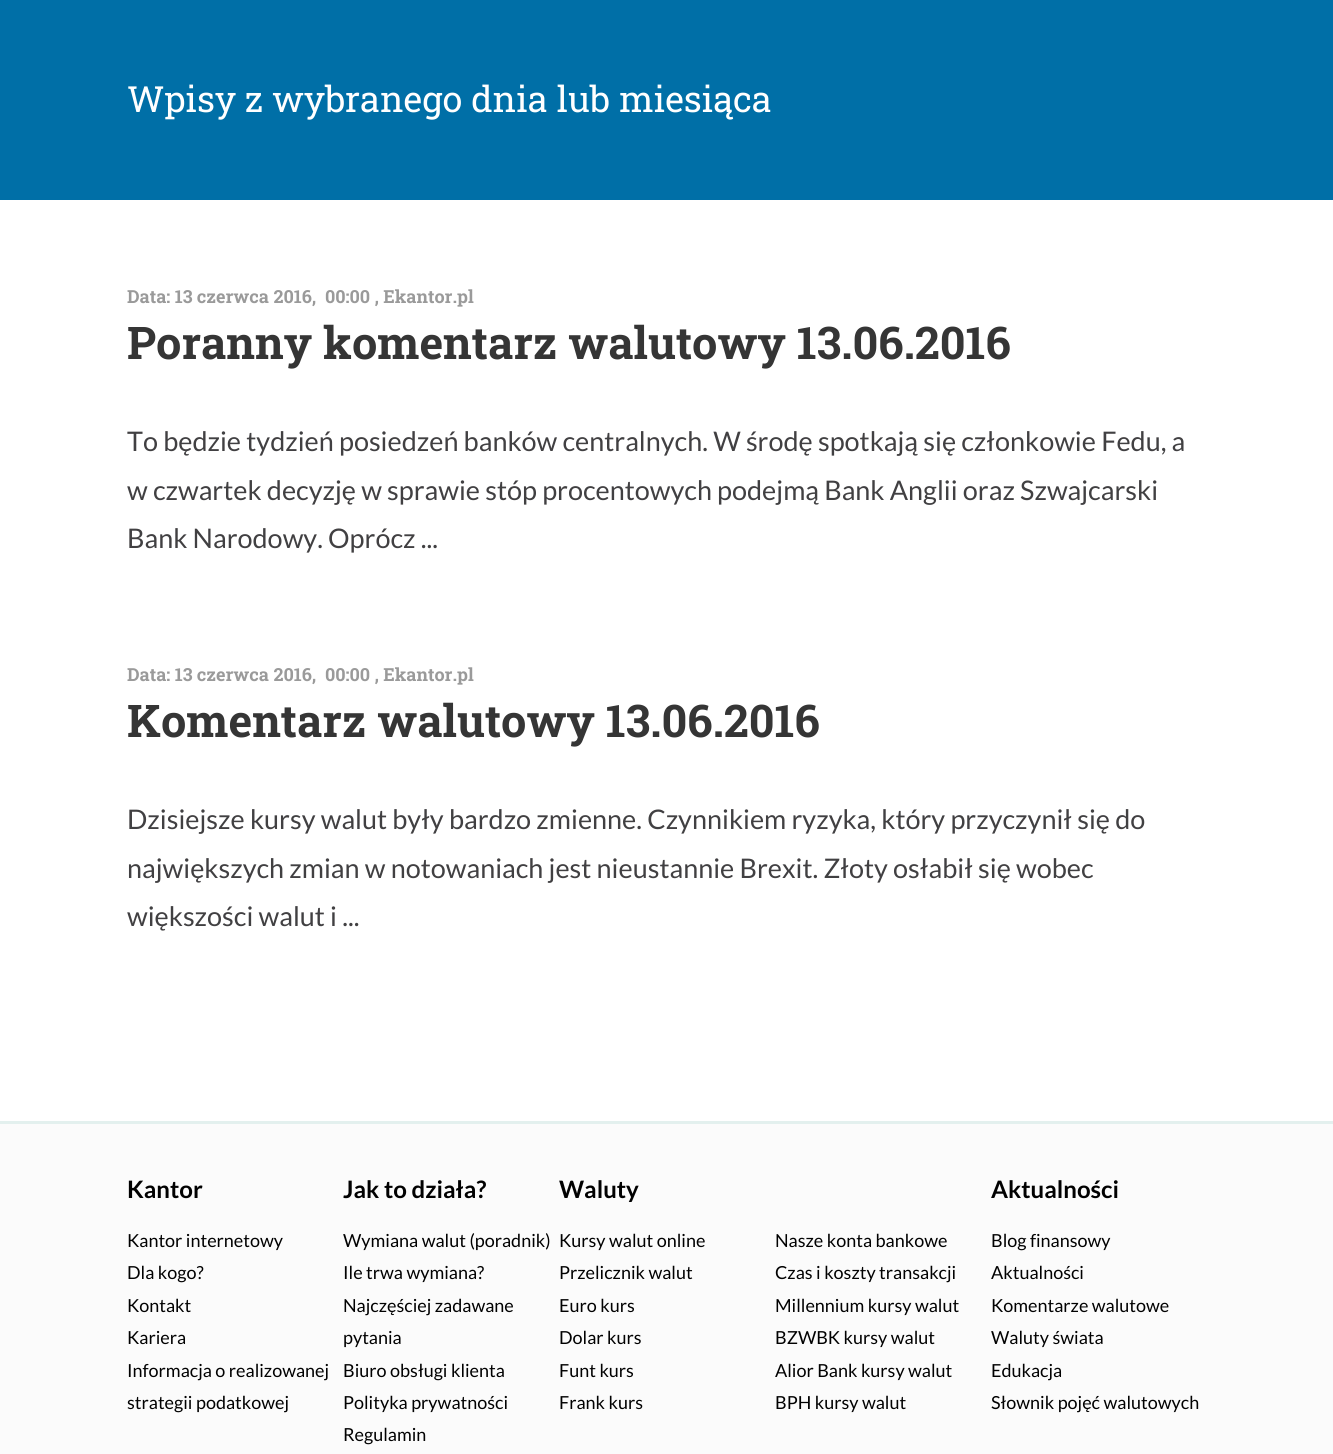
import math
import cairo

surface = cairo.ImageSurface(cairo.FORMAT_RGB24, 1333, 1454)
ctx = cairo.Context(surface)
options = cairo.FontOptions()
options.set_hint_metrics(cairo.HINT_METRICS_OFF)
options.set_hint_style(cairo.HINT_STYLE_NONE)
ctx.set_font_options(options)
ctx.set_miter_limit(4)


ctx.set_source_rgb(1, 1, 1)
ctx.paint()
ctx.set_source_rgb(0, 0.435, 0.655)
ctx.rectangle(0, 0, 1333, 200)
ctx.fill()
ctx.select_font_face("Roboto Slab")
ctx.set_font_size(36)
ctx.set_source_rgb(1, 1, 1)
ctx.move_to(127, 112)
ctx.show_text("Wpisy z wybranego dnia lub miesiąca")
ctx.select_font_face("Roboto Slab", cairo.FONT_SLANT_NORMAL, cairo.FONT_WEIGHT_BOLD)
ctx.set_font_size(18)
ctx.set_source_rgb(0.604, 0.604, 0.604)
ctx.move_to(127, 303)
ctx.show_text("Data: 13 czerwca 2016,  00:00 , Ekantor.pl")
ctx.set_font_size(45)
ctx.set_source_rgb(0.208, 0.208, 0.208)
ctx.move_to(127, 359)
ctx.show_text("Poranny komentarz walutowy 13.06.2016")
ctx.select_font_face("Lato")
ctx.set_font_size(27)
ctx.set_source_rgb(0.255, 0.251, 0.259)
ctx.move_to(127, 451)
ctx.show_text("To będzie tydzień posiedzeń banków centralnych. W środę spotkają się członkowie Fedu, a")
ctx.move_to(127, 500)
ctx.show_text("w czwartek decyzję w sprawie stóp procentowych podejmą Bank Anglii oraz Szwajcarski")
ctx.move_to(127, 548)
ctx.show_text("Bank Narodowy. Oprócz ...")
ctx.select_font_face("Roboto Slab", cairo.FONT_SLANT_NORMAL, cairo.FONT_WEIGHT_BOLD)
ctx.set_font_size(18)
ctx.set_source_rgb(0.604, 0.604, 0.604)
ctx.move_to(127, 681)
ctx.show_text("Data: 13 czerwca 2016,  00:00 , Ekantor.pl")
ctx.set_font_size(45)
ctx.set_source_rgb(0.208, 0.208, 0.208)
ctx.move_to(127, 737)
ctx.show_text("Komentarz walutowy 13.06.2016")
ctx.select_font_face("Lato")
ctx.set_font_size(27)
ctx.set_source_rgb(0.255, 0.251, 0.259)
ctx.move_to(127, 829)
ctx.show_text("Dzisiejsze kursy walut były bardzo zmienne. Czynnikiem ryzyka, który przyczynił się do")
ctx.move_to(127, 878)
ctx.show_text("największych zmian w notowaniach jest nieustannie Brexit. Złoty osłabił się wobec")
ctx.move_to(127, 926)
ctx.show_text("większości walut i ...")
ctx.set_source_rgb(0.984, 0.984, 0.984)
ctx.rectangle(0, 1124, 1333, 330)
ctx.fill()
ctx.set_source_rgb(0.89, 0.941, 0.933)
ctx.rectangle(0, 1121, 1333, 3)
ctx.fill()
ctx.select_font_face("Lato", cairo.FONT_SLANT_NORMAL, cairo.FONT_WEIGHT_BOLD)
ctx.set_font_size(24)
ctx.set_source_rgb(0.004, 0.004, 0.004)
ctx.move_to(127, 1198)
ctx.show_text("Kantor")
ctx.select_font_face("Lato")
ctx.set_font_size(18)
ctx.move_to(127, 1247)
ctx.show_text("Kantor internetowy")
ctx.move_to(127, 1279)
ctx.show_text("Dla kogo?")
ctx.move_to(127, 1312)
ctx.show_text("Kontakt")
ctx.move_to(127, 1344)
ctx.show_text("Kariera")
ctx.move_to(127, 1377)
ctx.show_text("Informacja o realizowanej")
ctx.move_to(127, 1409)
ctx.show_text("strategii podatkowej")
ctx.select_font_face("Lato", cairo.FONT_SLANT_NORMAL, cairo.FONT_WEIGHT_BOLD)
ctx.set_font_size(24)
ctx.move_to(343, 1198)
ctx.show_text("Jak to działa?")
ctx.select_font_face("Lato")
ctx.set_font_size(18)
ctx.move_to(343, 1247)
ctx.show_text("Wymiana walut (poradnik)")
ctx.move_to(343, 1279)
ctx.show_text("Ile trwa wymiana?")
ctx.move_to(343, 1312)
ctx.show_text("Najczęściej zadawane")
ctx.move_to(343, 1344)
ctx.show_text("pytania")
ctx.move_to(343, 1377)
ctx.show_text("Biuro obsługi klienta")
ctx.move_to(343, 1409)
ctx.show_text("Polityka prywatności")
ctx.move_to(343, 1441)
ctx.show_text("Regulamin")
ctx.select_font_face("Lato", cairo.FONT_SLANT_NORMAL, cairo.FONT_WEIGHT_BOLD)
ctx.set_font_size(24)
ctx.move_to(559, 1198)
ctx.show_text("Waluty")
ctx.select_font_face("Lato")
ctx.set_font_size(18)
ctx.move_to(559, 1247)
ctx.show_text("Kursy walut online")
ctx.move_to(559, 1279)
ctx.show_text("Przelicznik walut")
ctx.move_to(559, 1312)
ctx.show_text("Euro kurs")
ctx.move_to(559, 1344)
ctx.show_text("Dolar kurs")
ctx.move_to(559, 1377)
ctx.show_text("Funt kurs")
ctx.move_to(559, 1409)
ctx.show_text("Frank kurs")
ctx.move_to(775, 1247)
ctx.show_text("Nasze konta bankowe")
ctx.move_to(775, 1279)
ctx.show_text("Czas i koszty transakcji")
ctx.move_to(775, 1312)
ctx.show_text("Millennium kursy walut")
ctx.move_to(775, 1344)
ctx.show_text("BZWBK kursy walut")
ctx.move_to(775, 1377)
ctx.show_text("Alior Bank kursy walut")
ctx.move_to(775, 1409)
ctx.show_text("BPH kursy walut")
ctx.select_font_face("Lato", cairo.FONT_SLANT_NORMAL, cairo.FONT_WEIGHT_BOLD)
ctx.set_font_size(24)
ctx.move_to(991, 1198)
ctx.show_text("Aktualności")
ctx.select_font_face("Lato")
ctx.set_font_size(18)
ctx.move_to(991, 1247)
ctx.show_text("Blog finansowy")
ctx.move_to(991, 1279)
ctx.show_text("Aktualności")
ctx.move_to(991, 1312)
ctx.show_text("Komentarze walutowe")
ctx.move_to(991, 1344)
ctx.show_text("Waluty świata")
ctx.move_to(991, 1377)
ctx.show_text("Edukacja")
ctx.move_to(991, 1409)
ctx.show_text("Słownik pojęć walutowych")
surface.write_to_png("page.png")
